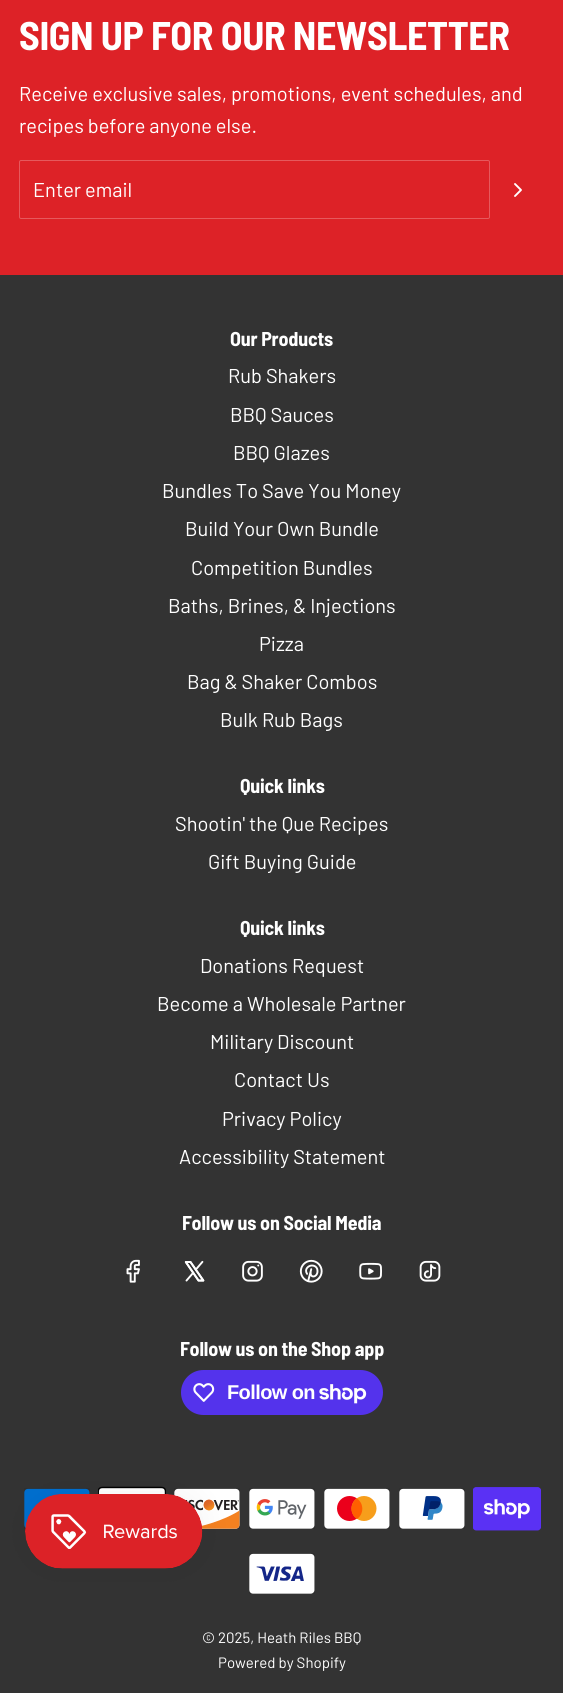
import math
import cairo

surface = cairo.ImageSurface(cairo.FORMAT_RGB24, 563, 1693)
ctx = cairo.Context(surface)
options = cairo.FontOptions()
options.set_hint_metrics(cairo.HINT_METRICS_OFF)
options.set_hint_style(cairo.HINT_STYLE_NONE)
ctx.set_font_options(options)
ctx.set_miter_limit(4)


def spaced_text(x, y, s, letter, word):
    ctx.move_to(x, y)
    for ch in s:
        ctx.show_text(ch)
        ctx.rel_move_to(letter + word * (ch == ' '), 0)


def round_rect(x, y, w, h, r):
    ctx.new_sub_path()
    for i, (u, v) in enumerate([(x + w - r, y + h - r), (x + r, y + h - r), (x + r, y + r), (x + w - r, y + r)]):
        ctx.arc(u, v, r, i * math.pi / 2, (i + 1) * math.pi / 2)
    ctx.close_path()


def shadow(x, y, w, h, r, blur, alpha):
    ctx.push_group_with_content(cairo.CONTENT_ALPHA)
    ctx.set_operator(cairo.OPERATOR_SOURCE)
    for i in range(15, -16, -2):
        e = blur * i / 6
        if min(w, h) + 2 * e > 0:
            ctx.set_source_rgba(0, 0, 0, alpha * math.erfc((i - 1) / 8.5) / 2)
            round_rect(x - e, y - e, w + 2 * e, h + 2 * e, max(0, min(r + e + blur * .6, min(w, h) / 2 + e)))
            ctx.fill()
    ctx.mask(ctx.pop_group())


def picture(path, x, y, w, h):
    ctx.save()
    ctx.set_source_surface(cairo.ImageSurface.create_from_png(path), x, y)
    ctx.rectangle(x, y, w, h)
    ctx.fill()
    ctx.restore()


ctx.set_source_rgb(0.867, 0.133, 0.153)
ctx.paint()
ctx.select_font_face("Barlow Semi Condensed", cairo.FONT_SLANT_NORMAL, cairo.FONT_WEIGHT_BOLD)
ctx.set_font_size(40)
ctx.set_source_rgb(1, 1, 1)
spaced_text(19, 50, "SIGN UP FOR OUR NEWSLETTER", -0.4, 0)
ctx.select_font_face("Barlow")
ctx.set_font_size(20)
ctx.move_to(19, 101)
ctx.show_text("Receive exclusive sales, promotions, event schedules, and")
ctx.move_to(19, 133)
ctx.show_text("recipes before anyone else.")
round_rect(19.5, 160.5, 470, 58, 1.5)
ctx.set_source_rgb(0.902, 0.349, 0.365)
ctx.set_line_width(1)
ctx.stroke()
ctx.set_source_rgb(1, 1, 1)
ctx.move_to(33, 197)
ctx.show_text("Enter email")
ctx.new_path()
ctx.move_to(515, 184)
ctx.line_to(521, 190)
ctx.line_to(515, 196)
ctx.set_line_width(1.9)
ctx.set_line_cap(cairo.LINE_CAP_ROUND)
ctx.set_line_join(cairo.LINE_JOIN_ROUND)
ctx.stroke()
ctx.set_source_rgb(0.2, 0.2, 0.2)
ctx.rectangle(0, 275, 563, 1418)
ctx.fill()
ctx.select_font_face("Barlow Semi Condensed", cairo.FONT_SLANT_NORMAL, cairo.FONT_WEIGHT_BOLD)
ctx.set_source_rgb(1, 1, 1)
spaced_text(230, 346, "Our Products", -0.2, 0)
ctx.select_font_face("Barlow")
ctx.move_to(228, 383)
ctx.show_text("Rub Shakers")
ctx.move_to(230, 422)
ctx.show_text("BBQ Sauces")
ctx.move_to(233, 460)
ctx.show_text("BBQ Glazes")
ctx.move_to(162, 498)
ctx.show_text("Bundles To Save You Money")
ctx.move_to(185, 536)
ctx.show_text("Build Your Own Bundle")
ctx.move_to(191, 575)
ctx.show_text("Competition Bundles")
ctx.move_to(168, 613)
ctx.show_text("Baths, Brines, & Injections")
ctx.move_to(259, 651)
ctx.show_text("Pizza")
ctx.move_to(187, 689)
ctx.show_text("Bag & Shaker Combos")
ctx.move_to(220, 727)
ctx.show_text("Bulk Rub Bags")
ctx.select_font_face("Barlow Semi Condensed", cairo.FONT_SLANT_NORMAL, cairo.FONT_WEIGHT_BOLD)
spaced_text(240, 793, "Quick links", -0.2, 0)
ctx.select_font_face("Barlow")
ctx.move_to(175, 831)
ctx.show_text("Shootin' the Que Recipes")
ctx.move_to(208, 869)
ctx.show_text("Gift Buying Guide")
ctx.select_font_face("Barlow Semi Condensed", cairo.FONT_SLANT_NORMAL, cairo.FONT_WEIGHT_BOLD)
spaced_text(240, 935, "Quick links", -0.2, 0)
ctx.select_font_face("Barlow")
ctx.move_to(200, 973)
ctx.show_text("Donations Request")
ctx.move_to(157, 1011)
ctx.show_text("Become a Wholesale Partner")
ctx.move_to(210, 1049)
ctx.show_text("Military Discount")
ctx.move_to(234, 1087)
ctx.show_text("Contact Us")
ctx.move_to(222, 1126)
ctx.show_text("Privacy Policy")
ctx.move_to(179, 1164)
ctx.show_text("Accessibility Statement")
ctx.select_font_face("Barlow Semi Condensed", cairo.FONT_SLANT_NORMAL, cairo.FONT_WEIGHT_BOLD)
spaced_text(182, 1230, "Follow us on Social Media", -0.2, 0)
picture("img1.png", 126, 1259, 14, 24)
picture("img2.png", 184, 1260, 21, 22)
picture("img3.png", 242, 1260, 21, 22)
picture("img4.png", 299, 1259, 24, 24)
picture("img5.png", 359, 1262, 23, 18)
picture("img6.png", 419, 1260, 22, 22)
spaced_text(180, 1356, "Follow us on the Shop app", -0.2, 0)
ctx.set_source_rgb(0.329, 0.2, 0.922)
round_rect(181, 1370, 202, 45, 22.5)
ctx.fill()
picture("img7.png", 193, 1383, 22, 19)
ctx.select_font_face("Liberation Sans", cairo.FONT_SLANT_NORMAL, cairo.FONT_WEIGHT_BOLD)
ctx.set_source_rgb(1, 1, 1)
spaced_text(227, 1399, "Follow on", -0.6, 0)
picture("img8.png", 319, 1384, 48, 20)
picture("img9.png", 24, 1488, 66, 41)
picture("img10.png", 98, 1486, 68, 8)
picture("img11.png", 174, 1488, 66, 41)
picture("img12.png", 249, 1488, 66, 41)
picture("img13.png", 324, 1488, 66, 41)
picture("img14.png", 399, 1488, 66, 41)
picture("img15.png", 473, 1487, 68, 44)
picture("img16.png", 249, 1553, 66, 41)
ctx.select_font_face("Barlow")
ctx.set_font_size(15)
ctx.move_to(202, 1643)
ctx.show_text("© 2025, Heath Riles BBQ")
ctx.move_to(218, 1668)
ctx.show_text("Powered by Shopify")
ctx.set_source_rgb(0, 0, 0)
shadow(25, 1494, 178, 75, 37.5, 15.5, 0.05)
picture("img17.png", 25, 1494, 178, 75)
surface.write_to_png("page.png")
